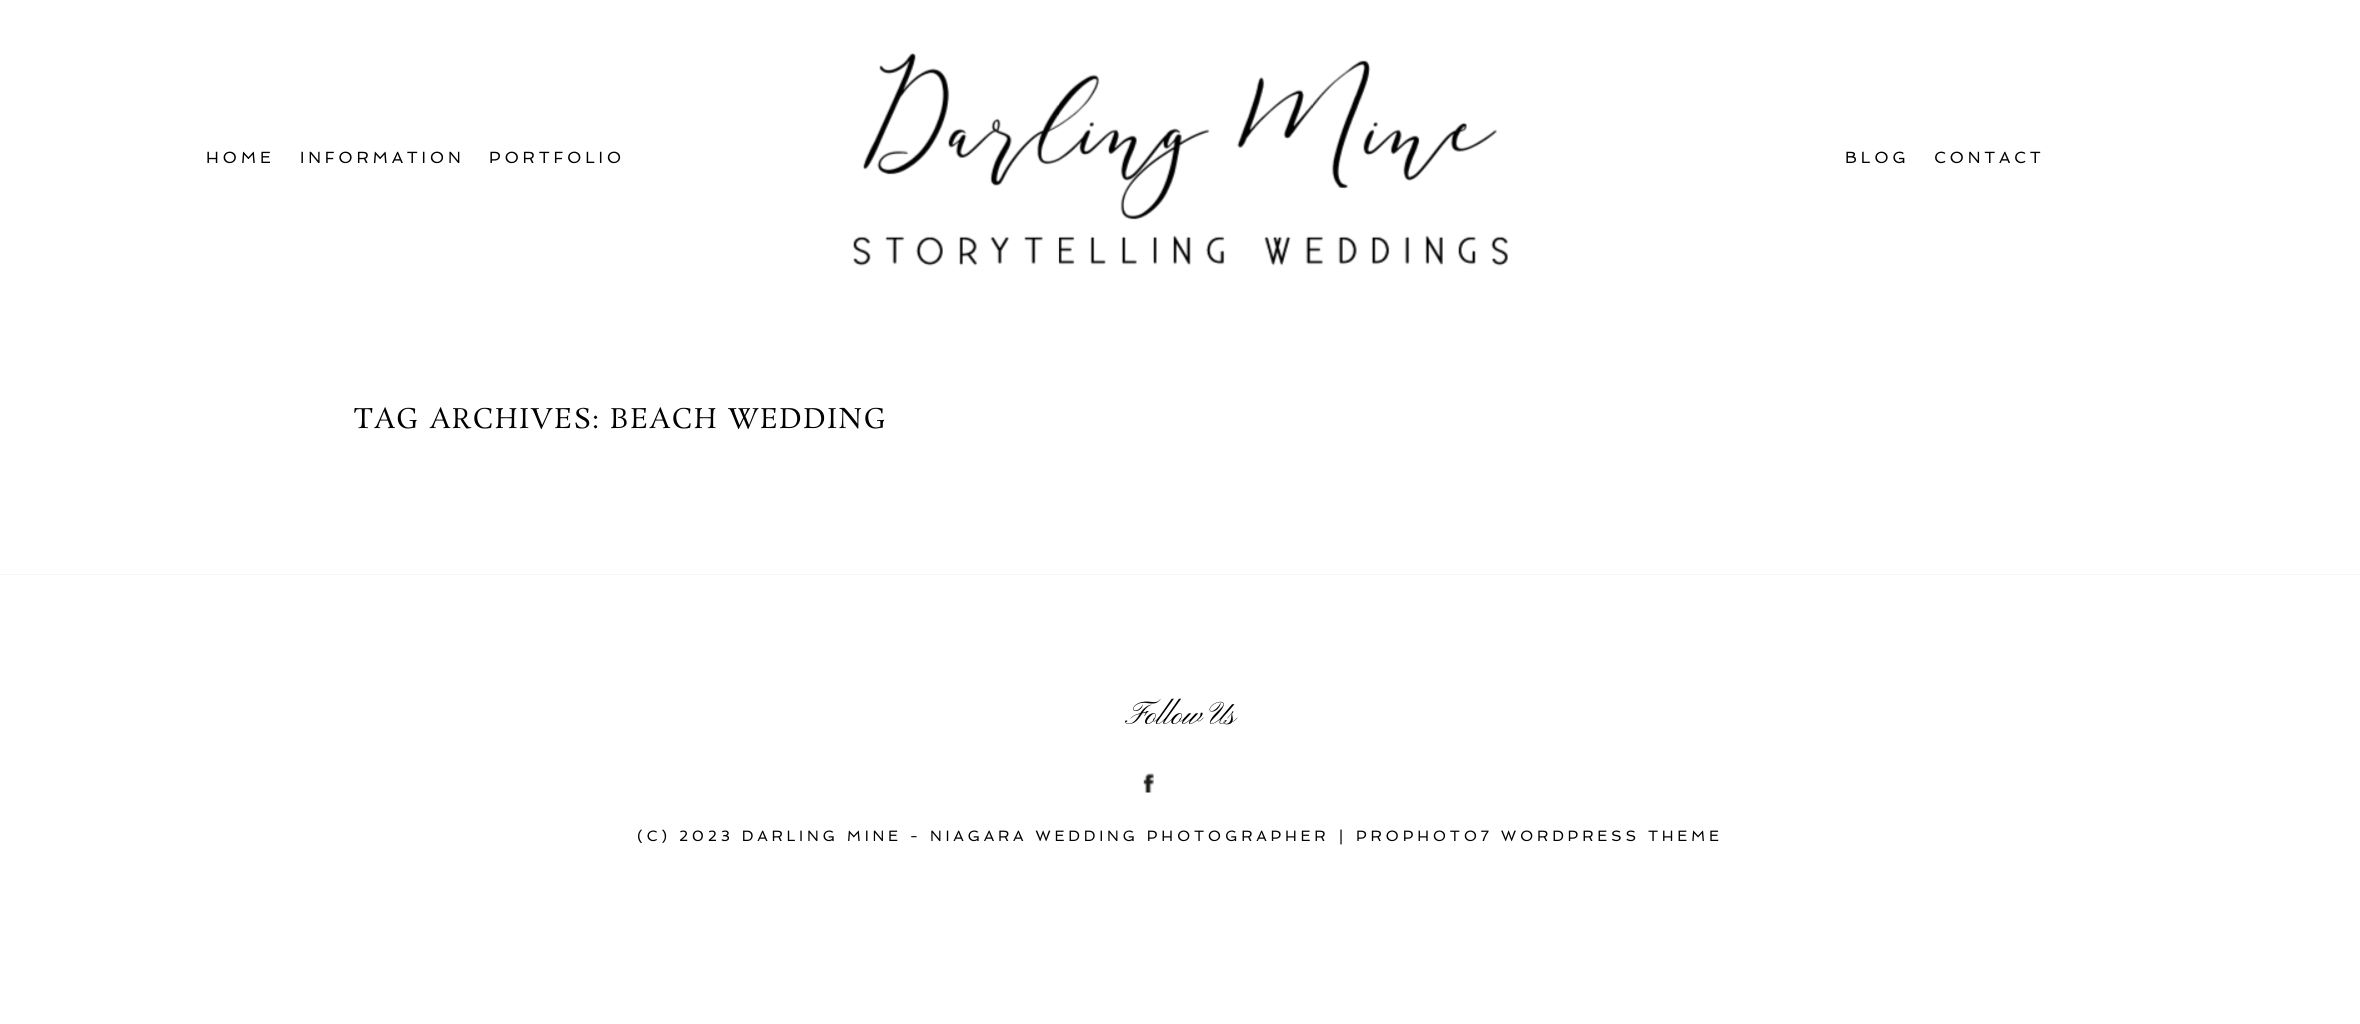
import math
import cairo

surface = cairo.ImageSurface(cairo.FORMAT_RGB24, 2360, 1024)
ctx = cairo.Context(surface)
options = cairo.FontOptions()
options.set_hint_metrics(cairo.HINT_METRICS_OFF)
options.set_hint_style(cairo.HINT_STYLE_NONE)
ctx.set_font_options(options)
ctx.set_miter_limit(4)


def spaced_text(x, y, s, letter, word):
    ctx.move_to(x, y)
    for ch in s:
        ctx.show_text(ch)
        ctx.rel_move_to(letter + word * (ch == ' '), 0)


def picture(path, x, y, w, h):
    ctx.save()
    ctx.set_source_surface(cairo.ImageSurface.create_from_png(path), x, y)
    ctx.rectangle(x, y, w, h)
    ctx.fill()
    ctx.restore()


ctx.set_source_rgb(1, 1, 1)
ctx.paint()
ctx.select_font_face("Spinnaker")
ctx.set_font_size(16.25)
ctx.set_source_rgb(0, 0, 0)
spaced_text(206, 163, "HOME", 3.75, 0)
spaced_text(300, 163, "INFORMATION", 3.75, 0)
spaced_text(489, 163, "PORTFOLIO", 3.75, 0)
picture("img1.png", 853, 53, 655, 213)
spaced_text(1845, 163, "BLOG", 3.75, 0)
spaced_text(1934, 163, "CONTACT", 3.75, 0)
ctx.select_font_face("Rosarivo")
ctx.set_font_size(27.5)
spaced_text(354, 428, "TAG ARCHIVES: BEACH WEDDING", 1.4, 0)
ctx.set_source_rgb(0.961, 0.961, 0.961)
ctx.rectangle(0, 574, 2360, 1)
ctx.fill()
ctx.select_font_face("Pinyon Script")
ctx.set_font_size(32.5)
ctx.set_source_rgb(0, 0, 0)
ctx.move_to(1125, 724)
ctx.show_text("Follow Us")
picture("img2.png", 1143, 773, 11, 20)
ctx.select_font_face("Spinnaker")
ctx.set_font_size(15)
spaced_text(637, 841, "(C) 2023 DARLING MINE - NIAGARA WEDDING PHOTOGRAPHER", 3.75, 0)
spaced_text(1339, 841, "|", 3.75, 0)
spaced_text(1356, 841, "PROPHOTO7 WORDPRESS THEME", 3.75, 0)
surface.write_to_png("page.png")
